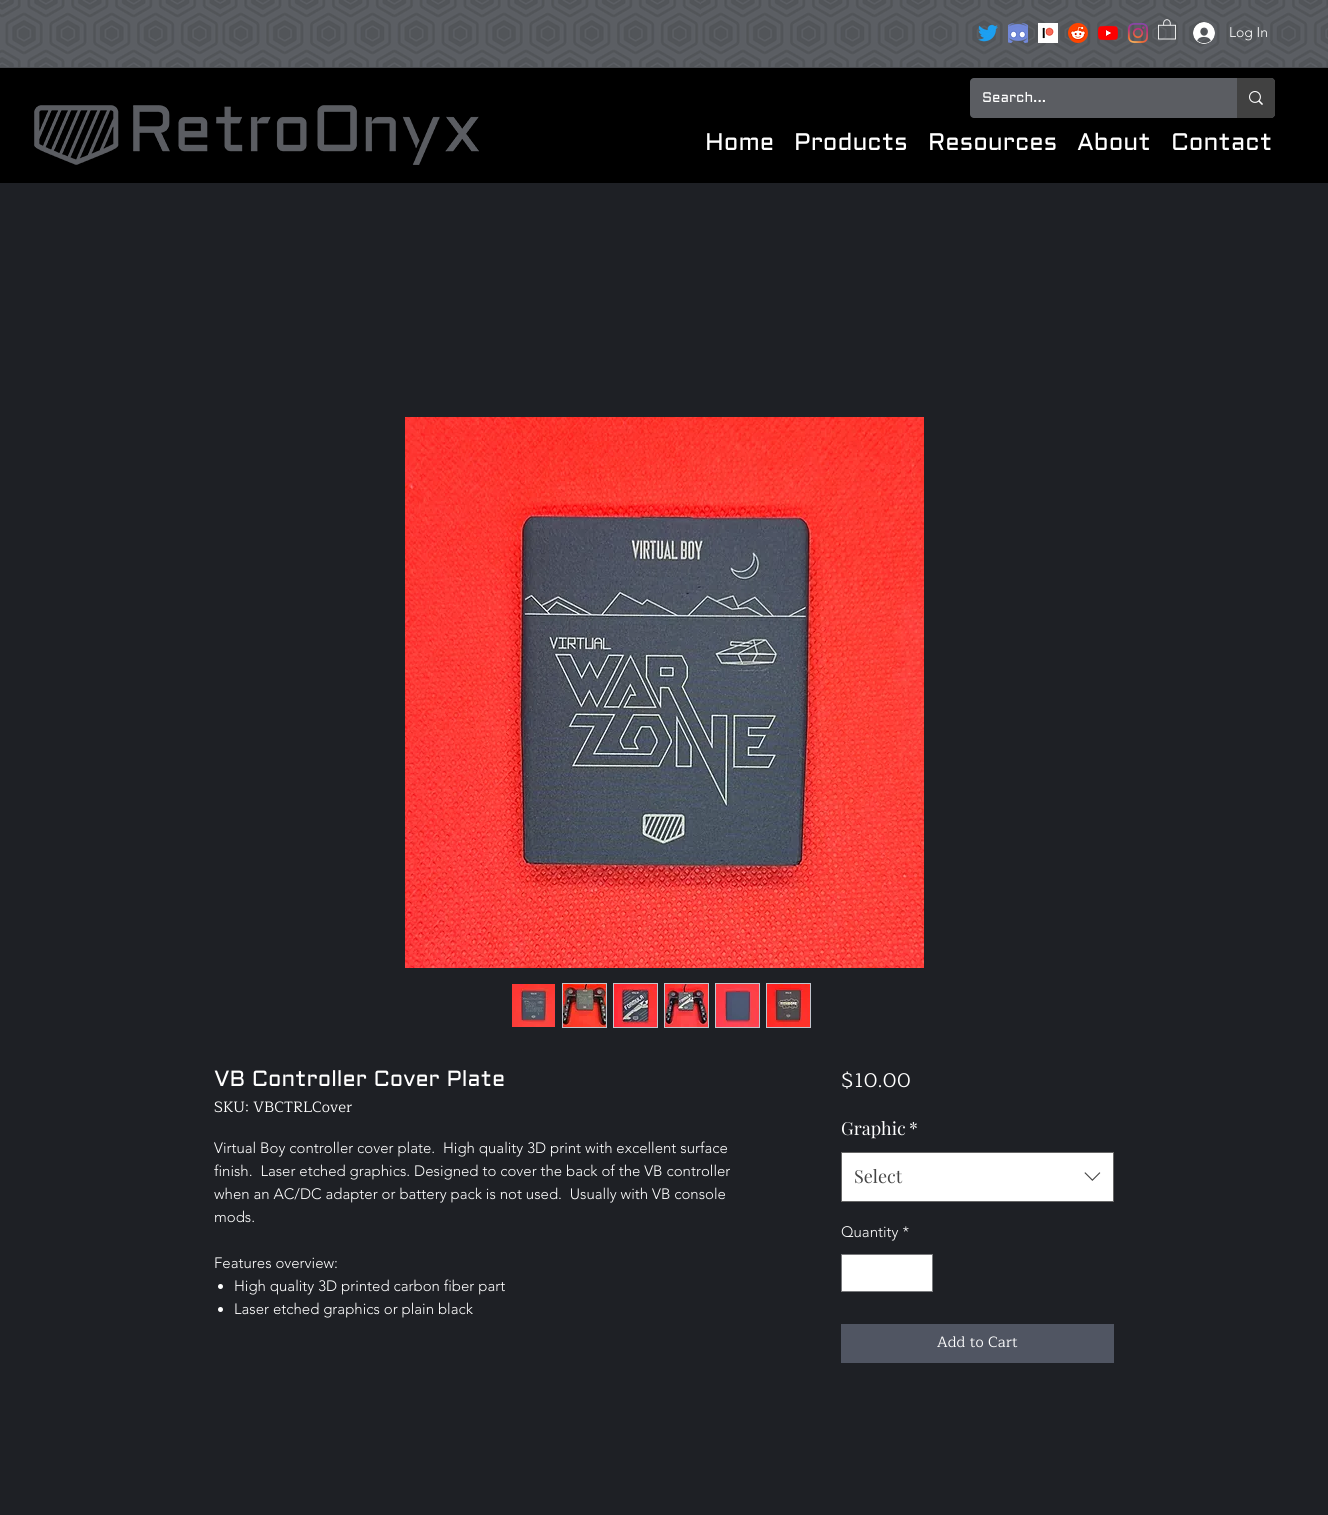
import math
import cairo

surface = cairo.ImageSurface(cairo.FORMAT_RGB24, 1328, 1515)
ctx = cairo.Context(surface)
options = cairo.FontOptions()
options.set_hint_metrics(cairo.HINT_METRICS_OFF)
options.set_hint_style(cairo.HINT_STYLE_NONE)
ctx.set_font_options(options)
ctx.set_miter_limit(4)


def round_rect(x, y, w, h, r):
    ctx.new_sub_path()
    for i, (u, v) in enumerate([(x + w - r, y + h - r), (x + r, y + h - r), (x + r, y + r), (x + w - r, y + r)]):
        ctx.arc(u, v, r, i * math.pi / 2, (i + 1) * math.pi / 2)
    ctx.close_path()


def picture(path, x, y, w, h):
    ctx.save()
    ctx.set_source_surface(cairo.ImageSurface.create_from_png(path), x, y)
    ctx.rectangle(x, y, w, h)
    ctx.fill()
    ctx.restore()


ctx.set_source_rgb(0.118, 0.125, 0.145)
ctx.paint()
picture("img1.png", 0, 0, 220, 67)
picture("img2.png", 220, 0, 481, 67)
picture("img3.png", 701, 0, 479, 67)
picture("img4.png", 1180, 0, 148, 67)
picture("img5.png", 978, 24, 20, 18)
picture("img6.png", 1008, 23, 20, 20)
picture("img7.png", 1038, 23, 20, 20)
picture("img8.png", 1068, 23, 20, 20)
picture("img9.png", 1098, 25, 20, 16)
picture("img10.png", 1128, 23, 20, 20)
picture("img11.png", 1158, 19, 18, 21)
picture("img12.png", 1193, 22, 22, 22)
ctx.select_font_face("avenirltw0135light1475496 Light")
ctx.set_font_size(14)
ctx.set_source_rgb(1, 1, 1)
ctx.move_to(1229, 37)
ctx.show_text("Log In")
ctx.set_source_rgb(0, 0, 0)
ctx.rectangle(0, 68, 1328, 115)
ctx.fill()
picture("img13.png", 34, 105, 445, 60)
ctx.set_source_rgb(0.357, 0.365, 0.384)
round_rect(970, 78, 305, 40, 4)
ctx.fill()
ctx.select_font_face("Aldrich")
ctx.set_source_rgb(1, 1, 1)
ctx.move_to(982, 102)
ctx.show_text("Search...")
ctx.set_source_rgb(0.255, 0.255, 0.255)
ctx.new_path()
ctx.move_to(1237, 78)
ctx.line_to(1271, 78)
ctx.curve_to(1273, 78, 1275, 80, 1275, 82)
ctx.line_to(1275, 114)
ctx.curve_to(1275, 116, 1273, 118, 1271, 118)
ctx.line_to(1237, 118)
ctx.close_path()
ctx.fill()
picture("img14.png", 1249, 91, 14, 14)
ctx.set_font_size(24)
ctx.set_source_rgb(1, 1, 1)
ctx.move_to(705, 150)
ctx.show_text("Home")
ctx.move_to(794, 150)
ctx.show_text("Products")
ctx.move_to(928, 150)
ctx.show_text("Resources")
ctx.move_to(1077, 150)
ctx.show_text("About")
ctx.move_to(1171, 150)
ctx.show_text("Contact")
picture("img15.png", 0, 67, 1328, 1)
picture("img16.png", 405, 417, 519, 551)
picture("img17.png", 512, 984, 43, 43)
ctx.set_source_rgb(0.761, 0.773, 0.804)
ctx.rectangle(562, 983, 45, 45)
ctx.fill()
picture("img18.png", 563, 984, 43, 43)
ctx.rectangle(613, 983, 45, 45)
ctx.fill()
picture("img19.png", 614, 984, 43, 43)
ctx.rectangle(664, 983, 45, 45)
ctx.fill()
picture("img20.png", 665, 984, 43, 43)
ctx.rectangle(715, 983, 45, 45)
ctx.fill()
picture("img21.png", 716, 984, 43, 43)
ctx.rectangle(766, 983, 45, 45)
ctx.fill()
picture("img22.png", 767, 984, 43, 43)
ctx.set_font_size(22)
ctx.set_source_rgb(1, 1, 1)
ctx.move_to(214, 1086)
ctx.show_text("VB Controller Cover Plate")
ctx.select_font_face("Maitree")
ctx.set_font_size(15)
ctx.move_to(214, 1112)
ctx.show_text("SKU: VBCTRLCover")
ctx.select_font_face("avenirltw0135light1475496 Light")
ctx.move_to(214, 1153)
ctx.show_text("Virtual Boy controller cover plate.  High quality 3D print with excellent surface")
ctx.move_to(214, 1176)
ctx.show_text("finish.  Laser etched graphics. Designed to cover the back of the VB controller")
ctx.move_to(214, 1199)
ctx.show_text("when an AC/DC adapter or battery pack is not used.  Usually with VB console")
ctx.move_to(214, 1222)
ctx.show_text("mods.")
ctx.move_to(214, 1268)
ctx.show_text("Features overview:")
ctx.new_path()
ctx.arc(220.5, 1286.5, 2.5, 0, 2 * math.pi)
ctx.fill()
ctx.move_to(234, 1291)
ctx.show_text("High quality 3D printed carbon fiber part")
ctx.new_path()
ctx.arc(220.5, 1309.5, 2.5, 0, 2 * math.pi)
ctx.fill()
ctx.move_to(234, 1314)
ctx.show_text("Laser etched graphics or plain black")
ctx.select_font_face("Maitree")
ctx.set_font_size(20)
ctx.move_to(841, 1087)
ctx.show_text("$10.00")
ctx.select_font_face("Playfair Display")
ctx.set_font_size(18)
ctx.move_to(841, 1135)
ctx.show_text("Graphic")
ctx.move_to(909, 1135)
ctx.show_text("*")
ctx.rectangle(841.5, 1152.5, 272, 49)
ctx.fill_preserve()
ctx.set_source_rgb(0.4, 0.4, 0.4)
ctx.set_line_width(1)
ctx.stroke()
ctx.set_source_rgb(0.267, 0.267, 0.267)
ctx.move_to(854, 1183)
ctx.show_text("Select")
picture("img23.png", 1084, 1172, 17, 9)
ctx.select_font_face("avenirltw0135light1475496 Light")
ctx.set_font_size(15)
ctx.set_source_rgb(1, 1, 1)
ctx.move_to(841, 1237)
ctx.show_text("Quantity *")
ctx.rectangle(841.5, 1254.5, 91, 37)
ctx.fill_preserve()
ctx.set_source_rgb(0.471, 0.475, 0.486)
ctx.stroke()
ctx.set_source_rgb(0.314, 0.333, 0.384)
ctx.rectangle(841, 1324, 273, 39)
ctx.fill()
ctx.select_font_face("Maitree")
ctx.set_source_rgb(1, 1, 1)
ctx.move_to(937, 1347)
ctx.show_text("Add to Cart")
surface.write_to_png("page.png")
